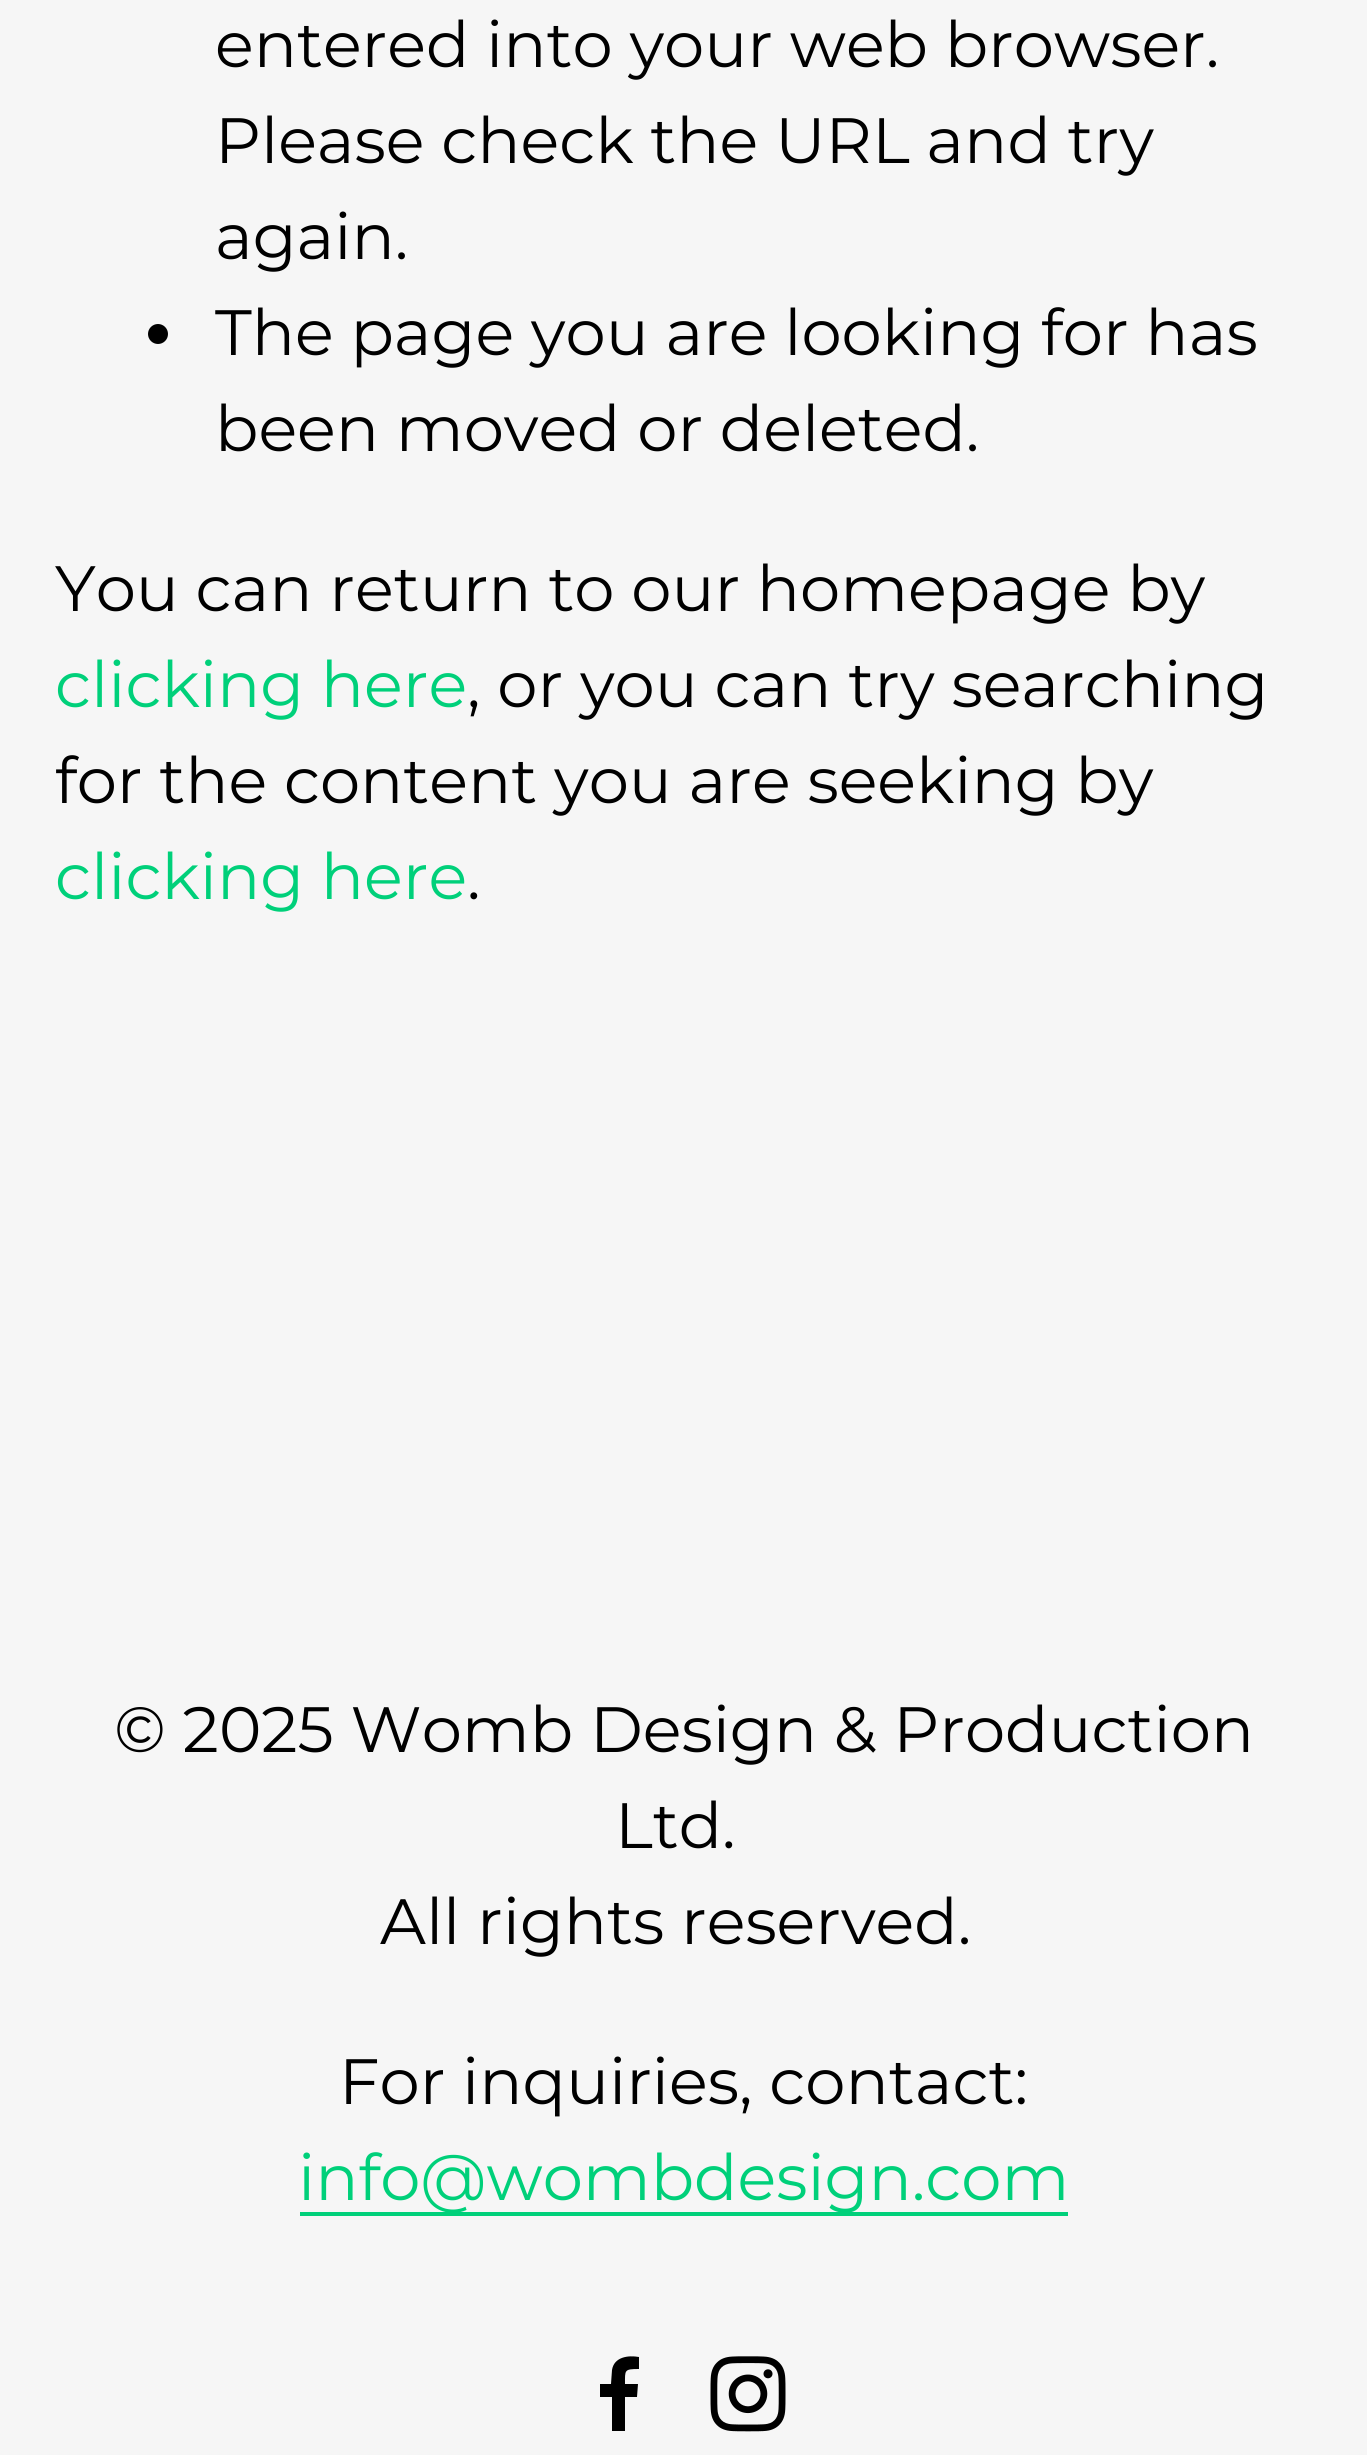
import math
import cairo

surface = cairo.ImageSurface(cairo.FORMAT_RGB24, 1367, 2455)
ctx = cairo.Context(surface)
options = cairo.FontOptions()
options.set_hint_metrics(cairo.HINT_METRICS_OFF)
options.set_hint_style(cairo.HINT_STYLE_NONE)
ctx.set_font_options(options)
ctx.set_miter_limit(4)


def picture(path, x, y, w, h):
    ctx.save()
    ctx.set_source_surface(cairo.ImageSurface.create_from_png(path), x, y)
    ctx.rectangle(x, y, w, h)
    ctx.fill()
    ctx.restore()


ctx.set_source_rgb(0.961, 0.961, 0.961)
ctx.paint()
ctx.select_font_face("Montserrat")
ctx.set_font_size(64)
ctx.set_source_rgb(0, 0, 0)
ctx.move_to(215, 67)
ctx.show_text("entered into your web browser.")
ctx.move_to(215, 163)
ctx.show_text("Please check the URL and try")
ctx.move_to(215, 259)
ctx.show_text("again.")
ctx.new_path()
ctx.arc(158, 334, 10, 0, 2 * math.pi)
ctx.fill()
ctx.move_to(215, 355)
ctx.show_text("The page you are looking for has")
ctx.move_to(215, 451)
ctx.show_text("been moved or deleted.")
ctx.move_to(55, 611)
ctx.show_text("You can return to our homepage by")
ctx.set_source_rgb(0, 0.816, 0.478)
ctx.move_to(55, 707)
ctx.show_text("clicking here")
ctx.set_source_rgb(0, 0, 0)
ctx.move_to(467, 707)
ctx.show_text(", or you can try searching")
ctx.move_to(55, 803)
ctx.show_text("for the content you are seeking by")
ctx.set_source_rgb(0, 0.816, 0.478)
ctx.move_to(55, 899)
ctx.show_text("clicking here")
ctx.set_source_rgb(0, 0, 0)
ctx.move_to(467, 899)
ctx.show_text(".")
ctx.move_to(114, 1752)
ctx.show_text("© 2025 Womb Design & Production")
ctx.move_to(615, 1848)
ctx.show_text("Ltd.")
ctx.move_to(380, 1944)
ctx.show_text("All rights reserved.")
ctx.move_to(339, 2104)
ctx.show_text("For inquiries, contact:")
ctx.set_source_rgb(0, 0.816, 0.478)
ctx.rectangle(300, 2212, 768, 4)
ctx.fill()
ctx.move_to(298, 2200)
ctx.show_text("info@wombdesign.com")
ctx.set_source_rgb(0, 0, 0)
ctx.new_path()
ctx.move_to(625, 2431)
ctx.line_to(625, 2397)
ctx.line_to(637, 2397)
ctx.line_to(638, 2384)
ctx.line_to(625, 2384)
ctx.curve_to(625, 2370, 624, 2369, 639, 2369)
ctx.line_to(639, 2357)
ctx.curve_to(628, 2355, 614, 2357, 612, 2370)
ctx.line_to(611, 2384)
ctx.line_to(600, 2384)
ctx.line_to(600, 2397)
ctx.line_to(612, 2397)
ctx.line_to(612, 2431)
ctx.close_path()
ctx.fill()
picture("img1.png", 710, 2356, 76, 76)
surface.write_to_png("page.png")
